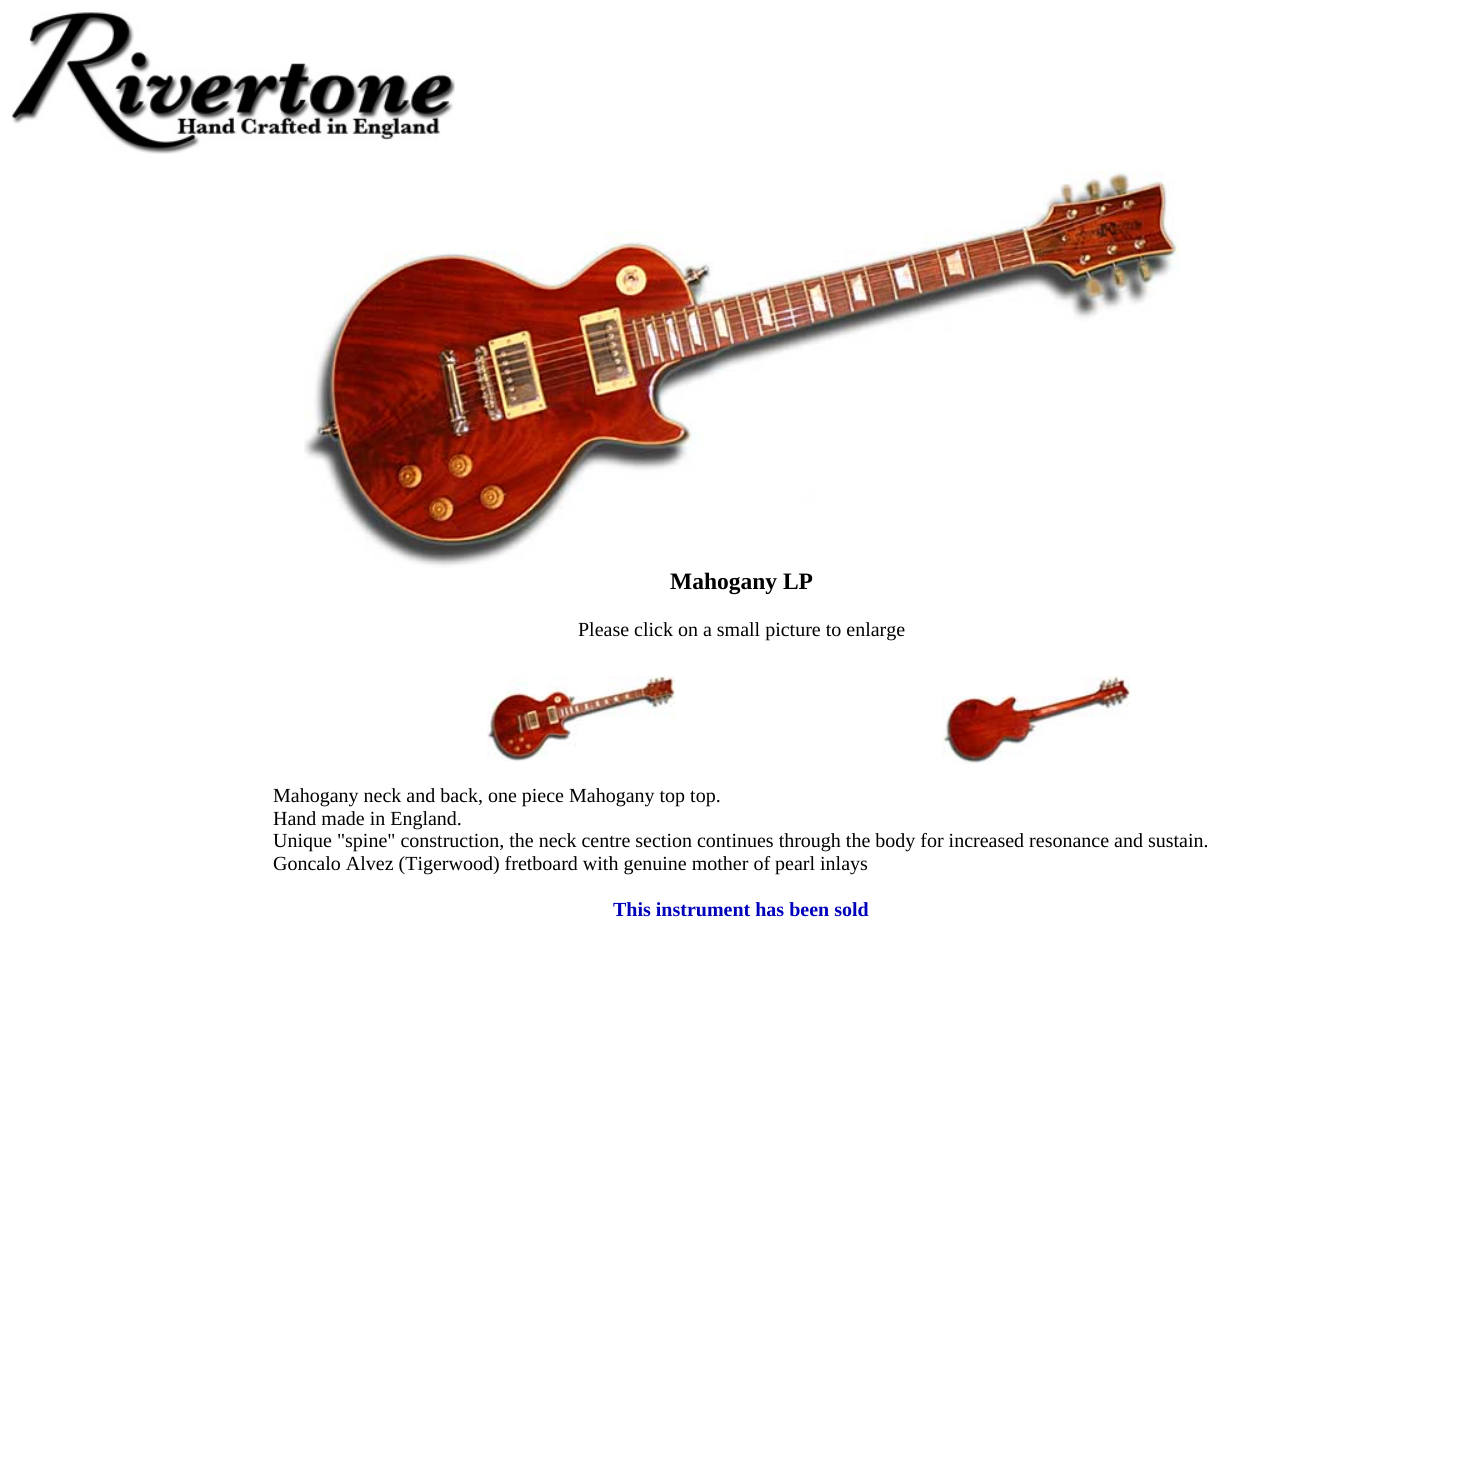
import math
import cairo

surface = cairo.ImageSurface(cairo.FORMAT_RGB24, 1482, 1479)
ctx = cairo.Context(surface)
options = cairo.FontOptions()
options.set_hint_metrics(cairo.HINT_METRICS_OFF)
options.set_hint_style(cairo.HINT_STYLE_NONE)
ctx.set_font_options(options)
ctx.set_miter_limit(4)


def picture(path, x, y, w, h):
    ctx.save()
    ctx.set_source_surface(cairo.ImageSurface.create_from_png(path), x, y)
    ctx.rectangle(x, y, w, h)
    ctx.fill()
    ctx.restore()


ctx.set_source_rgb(1, 1, 1)
ctx.paint()
picture("img1.png", 11, 12, 444, 142)
picture("img2.png", 304, 171, 875, 397)
ctx.select_font_face("Liberation Serif", cairo.FONT_SLANT_NORMAL, cairo.FONT_WEIGHT_BOLD)
ctx.set_font_size(23.5)
ctx.set_source_rgb(0, 0, 0)
ctx.move_to(670, 589)
ctx.show_text("Mahogany LP")
ctx.select_font_face("Liberation Serif")
ctx.set_font_size(20)
ctx.move_to(578, 636)
ctx.show_text("Please click on a small picture to enlarge")
picture("img3.png", 487, 676, 188, 86)
picture("img4.png", 942, 676, 188, 88)
ctx.move_to(273, 802)
ctx.show_text("Mahogany neck and back, one piece Mahogany top top.")
ctx.move_to(273, 825)
ctx.show_text("Hand made in England.")
ctx.move_to(273, 847)
ctx.show_text("Unique \"spine\" construction, the neck centre section continues through the body for increased resonance and sustain.")
ctx.move_to(273, 870)
ctx.show_text("Goncalo Alvez (Tigerwood) fretboard with genuine mother of pearl inlays")
ctx.select_font_face("Liberation Serif", cairo.FONT_SLANT_NORMAL, cairo.FONT_WEIGHT_BOLD)
ctx.set_source_rgb(0, 0, 0.733)
ctx.move_to(613, 916)
ctx.show_text("This instrument has been sold")
surface.write_to_png("page.png")
